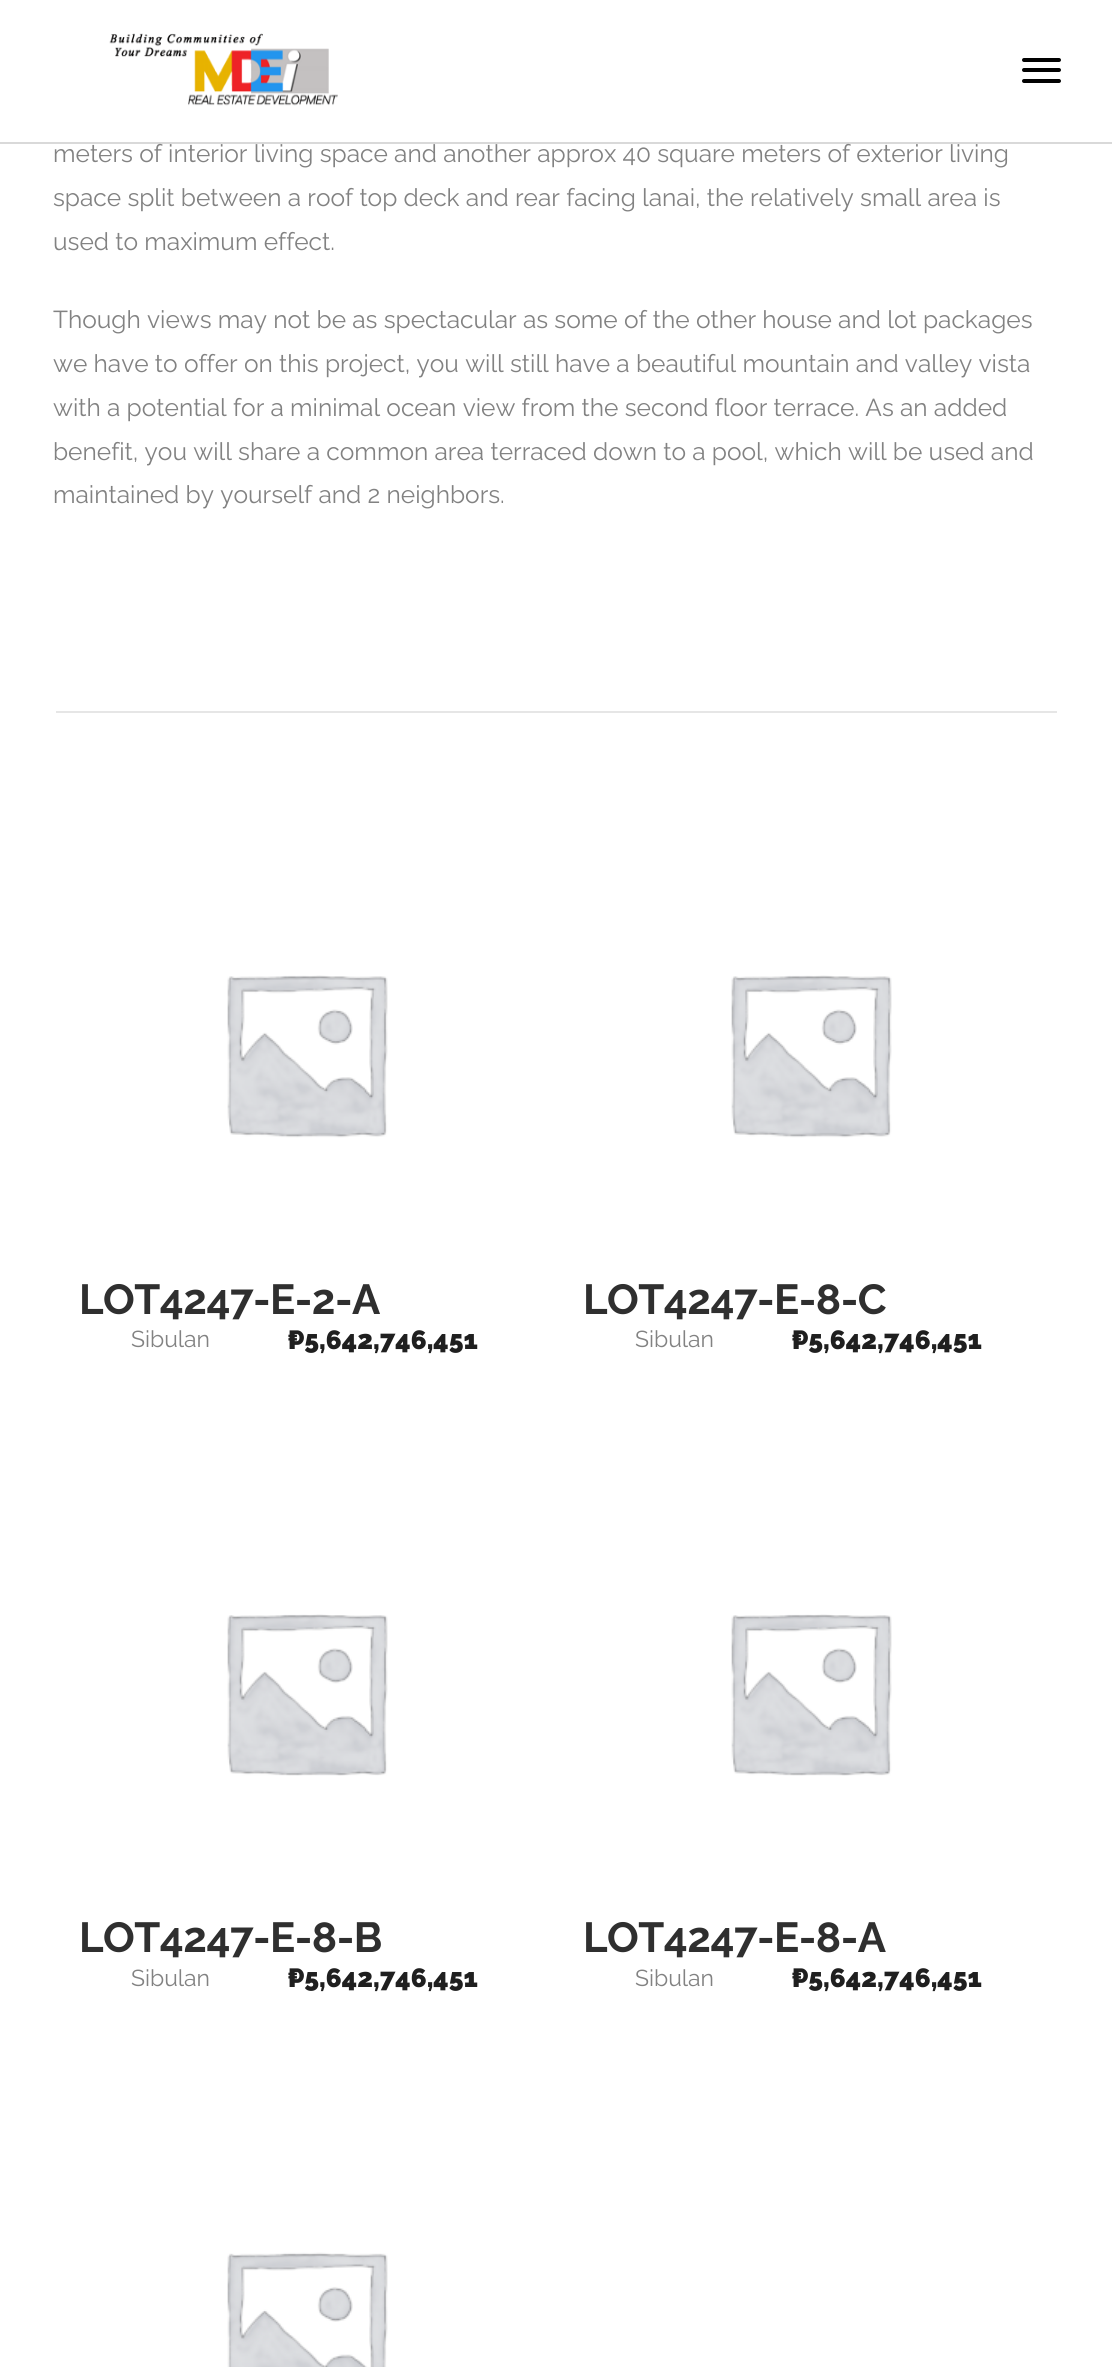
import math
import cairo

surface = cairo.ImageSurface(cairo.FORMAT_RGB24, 1112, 2367)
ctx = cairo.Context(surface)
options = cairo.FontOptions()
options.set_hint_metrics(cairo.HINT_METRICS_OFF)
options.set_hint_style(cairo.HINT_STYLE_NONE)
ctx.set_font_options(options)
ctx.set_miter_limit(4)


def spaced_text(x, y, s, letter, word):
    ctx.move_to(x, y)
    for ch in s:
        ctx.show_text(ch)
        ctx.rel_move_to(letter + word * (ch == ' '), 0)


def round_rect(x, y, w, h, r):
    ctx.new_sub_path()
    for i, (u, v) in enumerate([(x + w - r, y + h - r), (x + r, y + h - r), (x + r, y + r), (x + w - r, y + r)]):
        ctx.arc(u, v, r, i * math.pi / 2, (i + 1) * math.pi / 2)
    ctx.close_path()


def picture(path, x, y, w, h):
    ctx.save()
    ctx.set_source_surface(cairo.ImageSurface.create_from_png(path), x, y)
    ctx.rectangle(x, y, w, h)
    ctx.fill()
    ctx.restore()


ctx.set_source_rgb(1, 1, 1)
ctx.paint()
ctx.select_font_face("Raleway Thin")
ctx.set_font_size(24.5)
ctx.set_source_rgb(0.51, 0.51, 0.51)
ctx.move_to(53, 162)
ctx.show_text("meters of interior living space and another approx 40 square meters of exterior living")
ctx.set_source_rgba(0, 0, 0, 0.15)
ctx.rectangle(0, 142, 1112, 2)
ctx.fill()
picture("img1.png", 109, 33, 229, 73)
ctx.set_source_rgb(0.008, 0.008, 0.008)
round_rect(1022, 58, 39, 4, 2)
ctx.fill()
round_rect(1022, 68, 39, 4, 2)
ctx.fill()
round_rect(1022, 79, 39, 4, 2)
ctx.fill()
ctx.set_source_rgb(0.902, 0.902, 0.902)
ctx.rectangle(56, 711, 1001, 2)
ctx.fill()
ctx.set_source_rgb(0.51, 0.51, 0.51)
ctx.move_to(53, 206)
ctx.show_text("space split between a roof top deck and rear facing lanai, the relatively small area is")
ctx.move_to(53, 250)
ctx.show_text("used to maximum effect.")
ctx.move_to(53, 328)
ctx.show_text("Though views may not be as spectacular as some of the other house and lot packages")
ctx.move_to(53, 372)
ctx.show_text("we have to offer on this project, you will still have a beautiful mountain and valley vista")
ctx.move_to(53, 416)
ctx.show_text("with a potential for a minimal ocean view from the second floor terrace. As an added")
ctx.move_to(53, 460)
ctx.show_text("benefit, you will share a common area terraced down to a pool, which will be used and")
ctx.move_to(53, 503)
ctx.show_text("maintained by yourself and 2 neighbors.")
picture("img2.png", 227, 975, 161, 163)
ctx.select_font_face("Raleway", cairo.FONT_SLANT_NORMAL, cairo.FONT_WEIGHT_BOLD)
ctx.set_font_size(42)
ctx.set_source_rgb(0.184, 0.184, 0.184)
spaced_text(79, 1314, "LOT4247-E-2-A", -0.5, 0)
ctx.select_font_face("Raleway Thin")
ctx.set_font_size(23)
ctx.set_source_rgb(0.51, 0.51, 0.51)
ctx.move_to(131, 1347)
ctx.show_text("Sibulan")
ctx.select_font_face("Raleway Black")
ctx.set_font_size(26.25)
ctx.set_source_rgb(0.122, 0.122, 0.122)
ctx.move_to(288, 1349)
ctx.show_text("₱5,642,746,451")
picture("img2.png", 731, 975, 161, 163)
ctx.select_font_face("Raleway", cairo.FONT_SLANT_NORMAL, cairo.FONT_WEIGHT_BOLD)
ctx.set_font_size(42)
ctx.set_source_rgb(0.184, 0.184, 0.184)
spaced_text(583, 1314, "LOT4247-E-8-C", -0.5, 0)
ctx.select_font_face("Raleway Thin")
ctx.set_font_size(23)
ctx.set_source_rgb(0.51, 0.51, 0.51)
ctx.move_to(635, 1347)
ctx.show_text("Sibulan")
ctx.select_font_face("Raleway Black")
ctx.set_font_size(26.25)
ctx.set_source_rgb(0.122, 0.122, 0.122)
ctx.move_to(792, 1349)
ctx.show_text("₱5,642,746,451")
picture("img3.png", 227, 1614, 161, 162)
ctx.select_font_face("Raleway", cairo.FONT_SLANT_NORMAL, cairo.FONT_WEIGHT_BOLD)
ctx.set_font_size(42)
ctx.set_source_rgb(0.184, 0.184, 0.184)
spaced_text(79, 1952, "LOT4247-E-8-B", -0.5, 0)
ctx.select_font_face("Raleway Thin")
ctx.set_font_size(23)
ctx.set_source_rgb(0.51, 0.51, 0.51)
ctx.move_to(131, 1986)
ctx.show_text("Sibulan")
ctx.select_font_face("Raleway Black")
ctx.set_font_size(26.25)
ctx.set_source_rgb(0.122, 0.122, 0.122)
ctx.move_to(288, 1987)
ctx.show_text("₱5,642,746,451")
picture("img3.png", 731, 1614, 161, 162)
ctx.select_font_face("Raleway", cairo.FONT_SLANT_NORMAL, cairo.FONT_WEIGHT_BOLD)
ctx.set_font_size(42)
ctx.set_source_rgb(0.184, 0.184, 0.184)
spaced_text(583, 1952, "LOT4247-E-8-A", -0.5, 0)
ctx.select_font_face("Raleway Thin")
ctx.set_font_size(23)
ctx.set_source_rgb(0.51, 0.51, 0.51)
ctx.move_to(635, 1986)
ctx.show_text("Sibulan")
ctx.select_font_face("Raleway Black")
ctx.set_font_size(26.25)
ctx.set_source_rgb(0.122, 0.122, 0.122)
ctx.move_to(792, 1987)
ctx.show_text("₱5,642,746,451")
picture("img4.png", 227, 2252, 161, 115)
surface.write_to_png("page.png")
